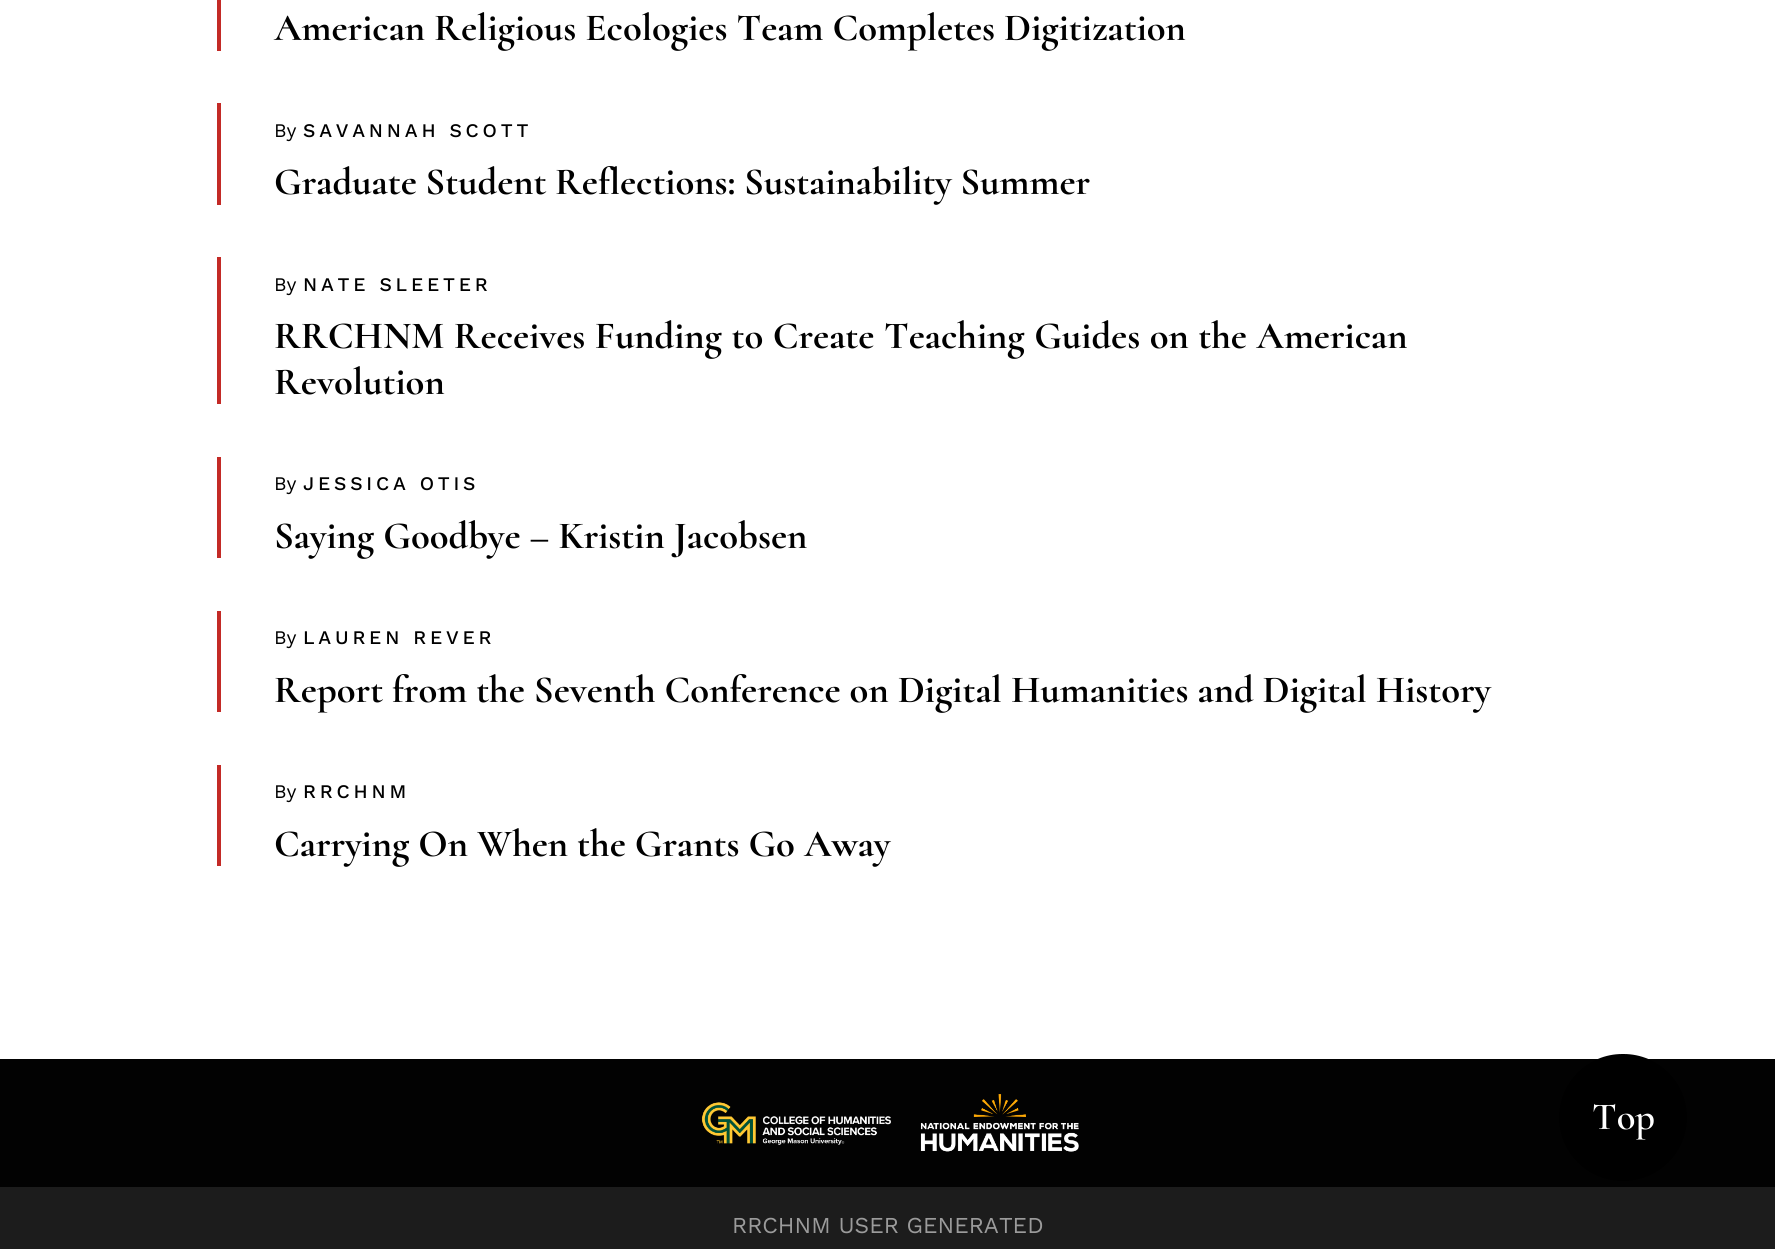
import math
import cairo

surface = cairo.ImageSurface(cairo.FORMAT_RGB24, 1775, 1249)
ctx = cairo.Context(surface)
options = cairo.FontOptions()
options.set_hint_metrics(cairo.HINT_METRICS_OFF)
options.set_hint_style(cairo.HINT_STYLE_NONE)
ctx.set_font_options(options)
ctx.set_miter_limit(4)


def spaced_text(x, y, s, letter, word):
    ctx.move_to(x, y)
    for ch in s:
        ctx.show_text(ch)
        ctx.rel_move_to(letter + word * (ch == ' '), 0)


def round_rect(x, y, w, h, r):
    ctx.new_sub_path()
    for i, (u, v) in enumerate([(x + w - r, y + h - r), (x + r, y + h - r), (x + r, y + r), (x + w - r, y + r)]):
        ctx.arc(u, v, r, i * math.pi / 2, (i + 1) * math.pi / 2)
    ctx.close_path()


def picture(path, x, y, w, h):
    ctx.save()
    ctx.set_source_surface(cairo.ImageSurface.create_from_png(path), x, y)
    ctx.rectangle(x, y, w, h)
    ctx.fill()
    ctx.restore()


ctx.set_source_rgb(1, 1, 1)
ctx.paint()
ctx.set_source_rgb(0.765, 0.165, 0.149)
ctx.rectangle(217, 0, 4, 51)
ctx.fill()
ctx.select_font_face("Cormorant", cairo.FONT_SLANT_NORMAL, cairo.FONT_WEIGHT_BOLD)
ctx.set_font_size(38.5)
ctx.set_source_rgb(0, 0, 0)
ctx.move_to(274, 40)
ctx.show_text("American Religious Ecologies Team Completes Digitization")
ctx.set_source_rgb(0.765, 0.165, 0.149)
ctx.rectangle(217, 103, 4, 102)
ctx.fill()
ctx.select_font_face("Work Sans")
ctx.set_font_size(19.25)
ctx.set_source_rgb(0, 0, 0)
ctx.move_to(274, 137)
ctx.show_text("By")
ctx.select_font_face("Work Sans Medium")
spaced_text(303, 137, "SAVANNAH SCOTT", 3.8, 0)
ctx.select_font_face("Cormorant", cairo.FONT_SLANT_NORMAL, cairo.FONT_WEIGHT_BOLD)
ctx.set_font_size(38.5)
spaced_text(274, 194, "Graduate Student Reflections: Sustainability Summer", 0, -0.5)
ctx.set_source_rgb(0.765, 0.165, 0.149)
ctx.rectangle(217, 257, 4, 147)
ctx.fill()
ctx.select_font_face("Work Sans")
ctx.set_font_size(19.25)
ctx.set_source_rgb(0, 0, 0)
ctx.move_to(274, 291)
ctx.show_text("By")
ctx.select_font_face("Work Sans Medium")
spaced_text(303, 291, "NATE SLEETER", 3.8, 0)
ctx.select_font_face("Cormorant", cairo.FONT_SLANT_NORMAL, cairo.FONT_WEIGHT_BOLD)
ctx.set_font_size(38.5)
spaced_text(274, 348, "RRCHNM Receives Funding to Create Teaching Guides on the American", 0, 0.5)
ctx.move_to(274, 394)
ctx.show_text("Revolution")
ctx.set_source_rgb(0.765, 0.165, 0.149)
ctx.rectangle(217, 457, 4, 101)
ctx.fill()
ctx.select_font_face("Work Sans")
ctx.set_font_size(19.25)
ctx.set_source_rgb(0, 0, 0)
ctx.move_to(274, 490)
ctx.show_text("By")
ctx.select_font_face("Work Sans Medium")
spaced_text(303, 490, "JESSICA OTIS", 3.8, 0)
ctx.select_font_face("Cormorant", cairo.FONT_SLANT_NORMAL, cairo.FONT_WEIGHT_BOLD)
ctx.set_font_size(38.5)
ctx.move_to(274, 548)
ctx.show_text("Saying Goodbye – Kristin Jacobsen")
ctx.set_source_rgb(0.765, 0.165, 0.149)
ctx.rectangle(217, 611, 4, 101)
ctx.fill()
ctx.select_font_face("Work Sans")
ctx.set_font_size(19.25)
ctx.set_source_rgb(0, 0, 0)
ctx.move_to(274, 644)
ctx.show_text("By")
ctx.select_font_face("Work Sans Medium")
spaced_text(303, 644, "LAUREN REVER", 3.8, 0)
ctx.select_font_face("Cormorant", cairo.FONT_SLANT_NORMAL, cairo.FONT_WEIGHT_BOLD)
ctx.set_font_size(38.5)
ctx.move_to(274, 702)
ctx.show_text("Report from the Seventh Conference on Digital Humanities and Digital History")
ctx.set_source_rgb(0.765, 0.165, 0.149)
ctx.rectangle(217, 765, 4, 101)
ctx.fill()
ctx.select_font_face("Work Sans")
ctx.set_font_size(19.25)
ctx.set_source_rgb(0, 0, 0)
ctx.move_to(274, 798)
ctx.show_text("By")
ctx.select_font_face("Work Sans Medium")
spaced_text(303, 798, "RRCHNM", 3.8, 0)
ctx.select_font_face("Cormorant", cairo.FONT_SLANT_NORMAL, cairo.FONT_WEIGHT_BOLD)
ctx.set_font_size(38.5)
ctx.move_to(274, 856)
ctx.show_text("Carrying On When the Grants Go Away")
ctx.set_source_rgb(0.008, 0.008, 0.008)
ctx.rectangle(0, 1059, 1775, 128)
ctx.fill()
ctx.set_source_rgb(0, 0, 0)
round_rect(1559, 1054, 128, 127, 63.5)
ctx.fill()
ctx.select_font_face("Cormorant SemiBold")
ctx.set_source_rgb(1, 1, 1)
ctx.move_to(1592, 1129)
ctx.show_text("Top")
picture("img1.png", 701, 1094, 378, 58)
ctx.set_source_rgb(0.11, 0.11, 0.11)
ctx.rectangle(0, 1187, 1775, 62)
ctx.fill()
ctx.select_font_face("Work Sans")
ctx.set_font_size(22.75)
ctx.set_source_rgb(0.608, 0.608, 0.608)
ctx.move_to(732, 1233)
ctx.show_text("RRCHNM USER GENERATED")
surface.write_to_png("page.png")
